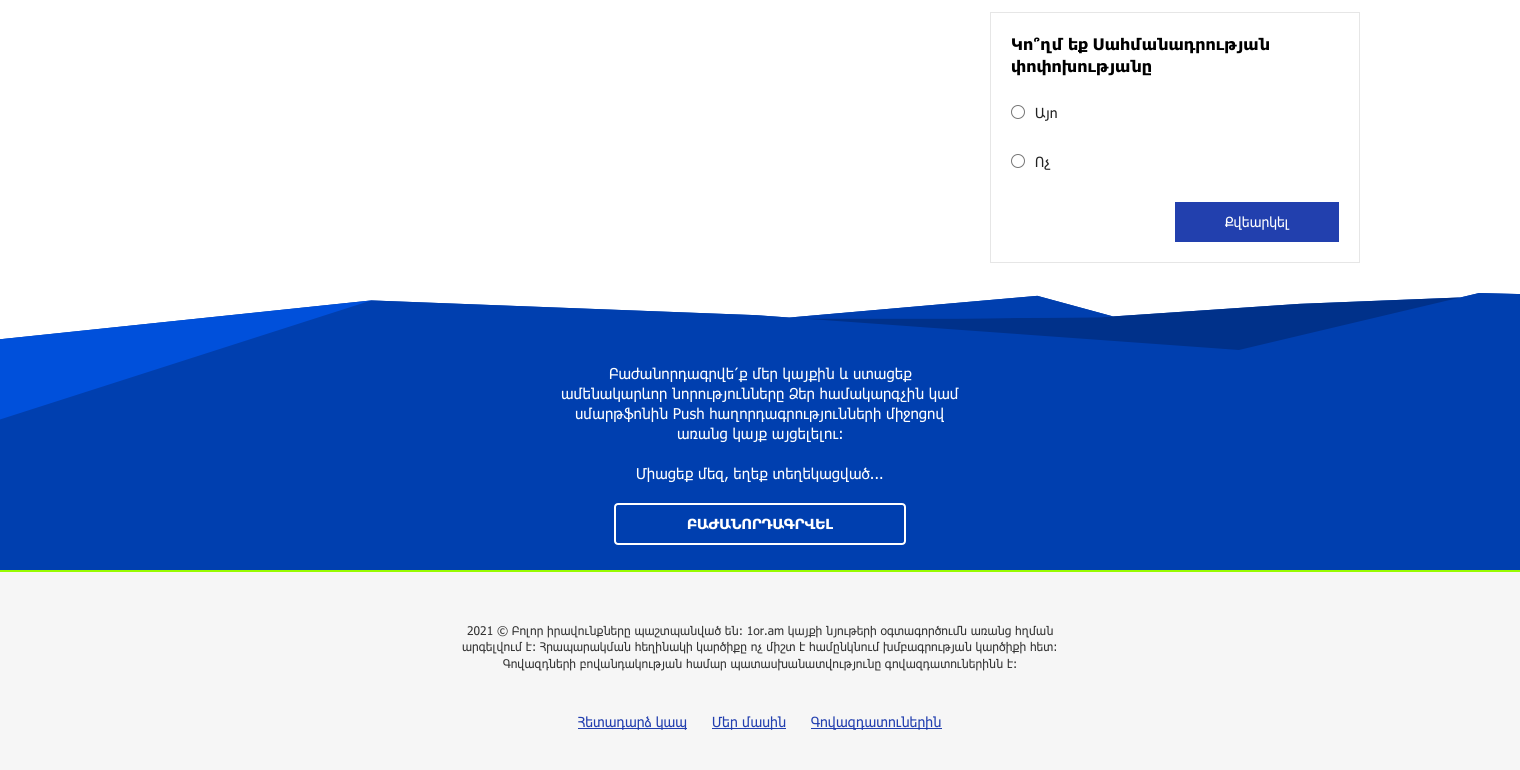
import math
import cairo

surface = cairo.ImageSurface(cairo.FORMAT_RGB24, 1520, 770)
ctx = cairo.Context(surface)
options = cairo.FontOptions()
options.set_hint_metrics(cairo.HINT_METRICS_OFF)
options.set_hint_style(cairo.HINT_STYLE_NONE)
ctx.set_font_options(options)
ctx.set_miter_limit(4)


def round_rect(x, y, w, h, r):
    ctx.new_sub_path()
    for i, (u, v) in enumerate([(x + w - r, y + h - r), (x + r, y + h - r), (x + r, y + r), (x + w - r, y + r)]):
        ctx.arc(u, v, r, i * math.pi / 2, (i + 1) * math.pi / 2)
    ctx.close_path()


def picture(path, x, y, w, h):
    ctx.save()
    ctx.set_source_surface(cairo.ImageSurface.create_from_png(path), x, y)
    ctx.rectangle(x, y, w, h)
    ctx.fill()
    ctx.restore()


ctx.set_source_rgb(1, 1, 1)
ctx.paint()
ctx.rectangle(990.5, 12.5, 369, 250)
ctx.set_source_rgb(0.902, 0.902, 0.902)
ctx.set_line_width(1)
ctx.stroke()
ctx.select_font_face("Tahoma", cairo.FONT_SLANT_NORMAL, cairo.FONT_WEIGHT_BOLD)
ctx.set_font_size(16)
ctx.set_source_rgb(0, 0, 0)
ctx.move_to(1011, 50)
ctx.show_text("Կո՞ղմ եք Սահմանադրության")
ctx.move_to(1011, 72)
ctx.show_text("փոփոխությանը")
ctx.new_path()
ctx.arc(1018, 112, 6.5, 0, 2 * math.pi)
ctx.set_source_rgb(0.463, 0.463, 0.463)
ctx.stroke()
ctx.select_font_face("Tahoma")
ctx.set_font_size(14)
ctx.set_source_rgb(0.133, 0.133, 0.133)
ctx.move_to(1035, 118)
ctx.show_text("Այո")
ctx.new_path()
ctx.arc(1018, 161, 6.5, 0, 2 * math.pi)
ctx.set_source_rgb(0.463, 0.463, 0.463)
ctx.stroke()
ctx.set_source_rgb(0.133, 0.133, 0.133)
ctx.move_to(1035, 167)
ctx.show_text("Ոչ")
ctx.set_source_rgb(0.133, 0.251, 0.682)
ctx.rectangle(1175, 202, 164, 40)
ctx.fill()
ctx.set_source_rgb(1, 1, 1)
ctx.move_to(1225, 227)
ctx.show_text("Քվեարկել")
picture("img1.png", 0, 293, 1520, 277)
ctx.set_font_size(15)
ctx.move_to(609, 379)
ctx.show_text("Բաժանորդագրվե՛ք մեր կայքին և ստացեք")
ctx.move_to(561, 399)
ctx.show_text("ամենակարևոր նորությունները Ձեր համակարգչին կամ")
ctx.move_to(575, 419)
ctx.show_text("սմարթֆոնին Push հաղորդագրությունների միջոցով")
ctx.move_to(677, 439)
ctx.show_text("առանց կայք այցելելու։")
ctx.move_to(636, 479)
ctx.show_text("Միացեք մեզ, եղեք տեղեկացված...")
round_rect(615, 504, 290, 40, 3)
ctx.set_line_width(2)
ctx.stroke()
ctx.select_font_face("Tahoma", cairo.FONT_SLANT_NORMAL, cairo.FONT_WEIGHT_BOLD)
ctx.set_font_size(14)
ctx.move_to(687, 529)
ctx.show_text("ԲԱԺԱՆՈՐԴԱԳՐՎԵԼ")
ctx.set_source_rgb(0.961, 0.961, 0.961)
ctx.rectangle(0, 572, 1520, 198)
ctx.fill()
ctx.set_source_rgb(0.596, 0.988, 0.004)
ctx.rectangle(0, 570, 1520, 2)
ctx.fill()
ctx.select_font_face("Tahoma")
ctx.set_font_size(12)
ctx.set_source_rgb(0.2, 0.2, 0.2)
ctx.move_to(467, 635)
ctx.show_text("2021 © Բոլոր իրավունքները պաշտպանված են: 1or.am կայքի նյութերի օգտագործումն առանց հղման")
ctx.move_to(462, 651)
ctx.show_text("արգելվում է: Հրապարակման հեղինակի կարծիքը ոչ միշտ է համընկնում խմբագրության կարծիքի հետ:")
ctx.move_to(503, 668)
ctx.show_text("Գովազդների բովանդակության համար պատասխանատվությունը գովազդատուներինն է:")
ctx.set_source_rgb(0.133, 0.247, 0.686)
ctx.rectangle(578, 728, 109, 1)
ctx.fill()
ctx.set_font_size(14)
ctx.move_to(578, 727)
ctx.show_text("Հետադարձ կապ")
ctx.rectangle(712, 728, 74, 1)
ctx.fill()
ctx.move_to(712, 727)
ctx.show_text("Մեր մասին")
ctx.rectangle(811, 728, 131, 1)
ctx.fill()
ctx.move_to(811, 727)
ctx.show_text("Գովազդատուներին")
surface.write_to_png("page.png")
